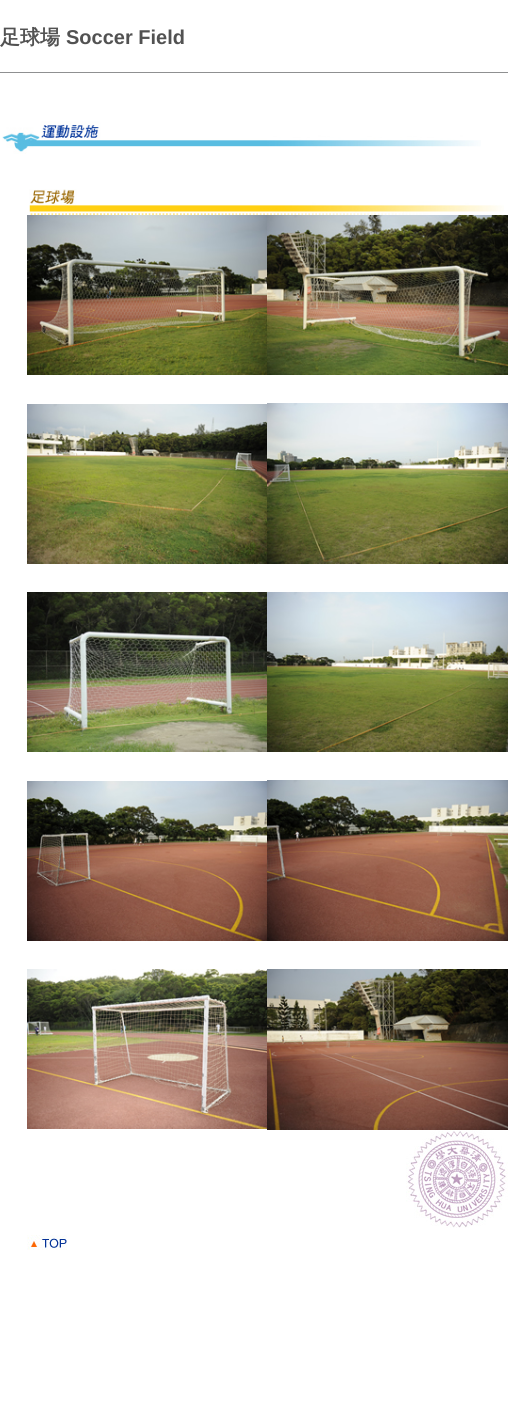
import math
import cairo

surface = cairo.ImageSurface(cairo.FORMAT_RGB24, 508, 1409)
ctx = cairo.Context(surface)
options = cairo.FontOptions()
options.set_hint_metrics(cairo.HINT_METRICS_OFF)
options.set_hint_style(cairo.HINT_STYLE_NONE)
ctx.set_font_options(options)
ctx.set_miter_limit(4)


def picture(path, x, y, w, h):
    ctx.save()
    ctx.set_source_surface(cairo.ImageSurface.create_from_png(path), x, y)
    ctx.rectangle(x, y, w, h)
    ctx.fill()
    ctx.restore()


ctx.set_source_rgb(1, 1, 1)
ctx.paint()
ctx.set_source_rgb(0.561, 0.565, 0.569)
ctx.rectangle(0, 72, 508, 1)
ctx.fill()
ctx.select_font_face("WenQuanYi Zen Hei", cairo.FONT_SLANT_NORMAL, cairo.FONT_WEIGHT_BOLD)
ctx.set_font_size(20)
ctx.set_source_rgb(0.322, 0.322, 0.322)
ctx.move_to(0, 44)
ctx.show_text("足球場")
ctx.select_font_face("Liberation Sans", cairo.FONT_SLANT_NORMAL, cairo.FONT_WEIGHT_BOLD)
ctx.move_to(66, 44)
ctx.show_text("Soccer Field")
picture("img1.png", 2, 121, 479, 33)
picture("img2.png", 29, 189, 475, 26)
picture("img3.png", 27, 215, 240, 160)
picture("img4.png", 267, 215, 241, 160)
picture("img5.png", 27, 404, 240, 160)
picture("img6.png", 267, 403, 241, 161)
picture("img7.png", 27, 592, 240, 160)
picture("img8.png", 267, 592, 241, 160)
picture("img9.png", 27, 781, 240, 160)
picture("img10.png", 267, 780, 241, 161)
picture("img11.png", 27, 969, 240, 160)
picture("img12.png", 267, 969, 241, 161)
picture("img13.png", 406, 1130, 102, 98)
picture("img14.png", 27, 1235, 40, 15)
surface.write_to_png("page.png")
